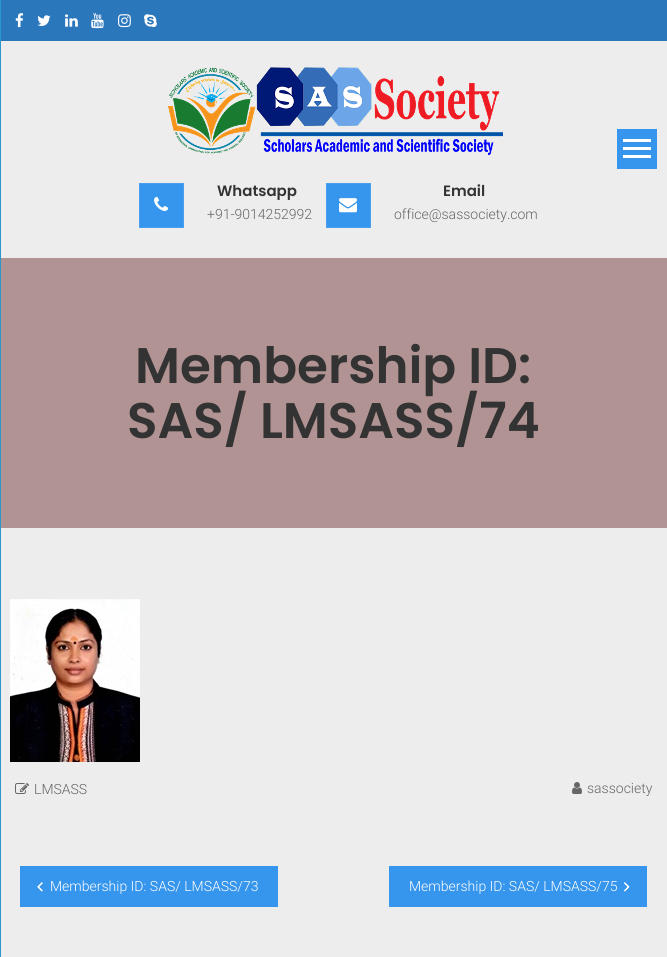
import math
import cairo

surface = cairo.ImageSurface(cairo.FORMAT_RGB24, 667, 957)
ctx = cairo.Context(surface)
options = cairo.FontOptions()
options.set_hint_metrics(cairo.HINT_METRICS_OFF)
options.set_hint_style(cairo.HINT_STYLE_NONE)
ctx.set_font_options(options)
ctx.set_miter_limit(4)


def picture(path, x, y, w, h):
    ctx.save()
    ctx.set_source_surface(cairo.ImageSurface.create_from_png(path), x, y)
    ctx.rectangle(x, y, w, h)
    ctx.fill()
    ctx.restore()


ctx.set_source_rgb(0.929, 0.929, 0.929)
ctx.paint()
ctx.set_source_rgb(0.169, 0.588, 0.8)
ctx.rectangle(0, 0, 1, 957)
ctx.fill()
ctx.set_source_rgb(0.212, 0.584, 0.922)
ctx.rectangle(617, 129, 40, 40)
ctx.fill()
ctx.set_source_rgb(1, 1, 1)
ctx.rectangle(623, 139, 28, 3)
ctx.fill()
ctx.rectangle(623, 147, 28, 3)
ctx.fill()
ctx.rectangle(623, 155, 28, 3)
ctx.fill()
ctx.set_source_rgb(0.169, 0.467, 0.737)
ctx.rectangle(1, 0, 666, 41)
ctx.fill()
picture("img1.png", 15, 13, 9, 15)
picture("img2.png", 37, 15, 14, 11)
picture("img3.png", 65, 14, 13, 13)
picture("img4.png", 91, 13, 13, 16)
picture("img5.png", 118, 14, 13, 14)
picture("img6.png", 144, 14, 13, 14)
picture("img7.png", 168, 67, 335, 88)
ctx.set_source_rgb(0.212, 0.584, 0.922)
ctx.rectangle(139.5, 183.5, 44, 44)
ctx.fill_preserve()
ctx.set_source_rgb(0.29, 0.627, 0.929)
ctx.set_line_width(1)
ctx.stroke()
picture("img8.png", 154, 196, 15, 15)
ctx.select_font_face("Poppins SemiBold")
ctx.set_font_size(15)
ctx.set_source_rgb(0.2, 0.2, 0.2)
ctx.move_to(217, 196)
ctx.show_text("Whatsapp")
ctx.select_font_face("Roboto Light")
ctx.set_font_size(14)
ctx.set_source_rgb(0.4, 0.4, 0.4)
ctx.move_to(207, 219)
ctx.show_text("+91-9014252992")
ctx.set_source_rgb(0.212, 0.584, 0.922)
ctx.rectangle(326.5, 183.5, 44, 44)
ctx.fill_preserve()
ctx.set_source_rgb(0.29, 0.627, 0.929)
ctx.stroke()
picture("img9.png", 339, 198, 18, 15)
ctx.select_font_face("Poppins SemiBold")
ctx.set_font_size(15)
ctx.set_source_rgb(0.2, 0.2, 0.2)
ctx.move_to(443, 196)
ctx.show_text("Email")
ctx.select_font_face("Roboto Light")
ctx.set_font_size(14)
ctx.set_source_rgb(0.4, 0.4, 0.4)
ctx.move_to(394, 219)
ctx.show_text("office@sassociety.com")
ctx.set_source_rgb(0.698, 0.576, 0.576)
ctx.rectangle(1, 258, 666, 270)
ctx.fill()
ctx.select_font_face("Poppins SemiBold")
ctx.set_font_size(50)
ctx.set_source_rgb(0.2, 0.2, 0.2)
ctx.move_to(135, 383)
ctx.show_text("Membership ID:")
ctx.move_to(127, 438)
ctx.show_text("SAS/ LMSASS/74")
picture("img10.png", 10, 599, 130, 163)
picture("img11.png", 15, 783, 14, 11)
ctx.select_font_face("Roboto Light")
ctx.set_font_size(14)
ctx.set_source_rgb(0.4, 0.4, 0.4)
ctx.move_to(34, 794)
ctx.show_text("LMSASS")
picture("img12.png", 572, 782, 10, 12)
ctx.move_to(587, 793)
ctx.show_text("sassociety")
ctx.set_source_rgb(0.212, 0.584, 0.922)
ctx.rectangle(20, 866, 258, 41)
ctx.fill()
picture("img13.png", 37, 882, 6, 10)
ctx.set_source_rgb(1, 1, 1)
ctx.move_to(50, 891)
ctx.show_text("Membership ID: SAS/ LMSASS/73")
picture("img14.png", 37, 882, 6, 10)
ctx.set_source_rgb(0.212, 0.584, 0.922)
ctx.rectangle(389, 866, 258, 41)
ctx.fill()
ctx.set_source_rgb(1, 1, 1)
ctx.move_to(409, 891)
ctx.show_text("Membership ID: SAS/ LMSASS/75")
picture("img15.png", 624, 882, 6, 10)
picture("img16.png", 624, 882, 6, 10)
surface.write_to_png("page.png")
